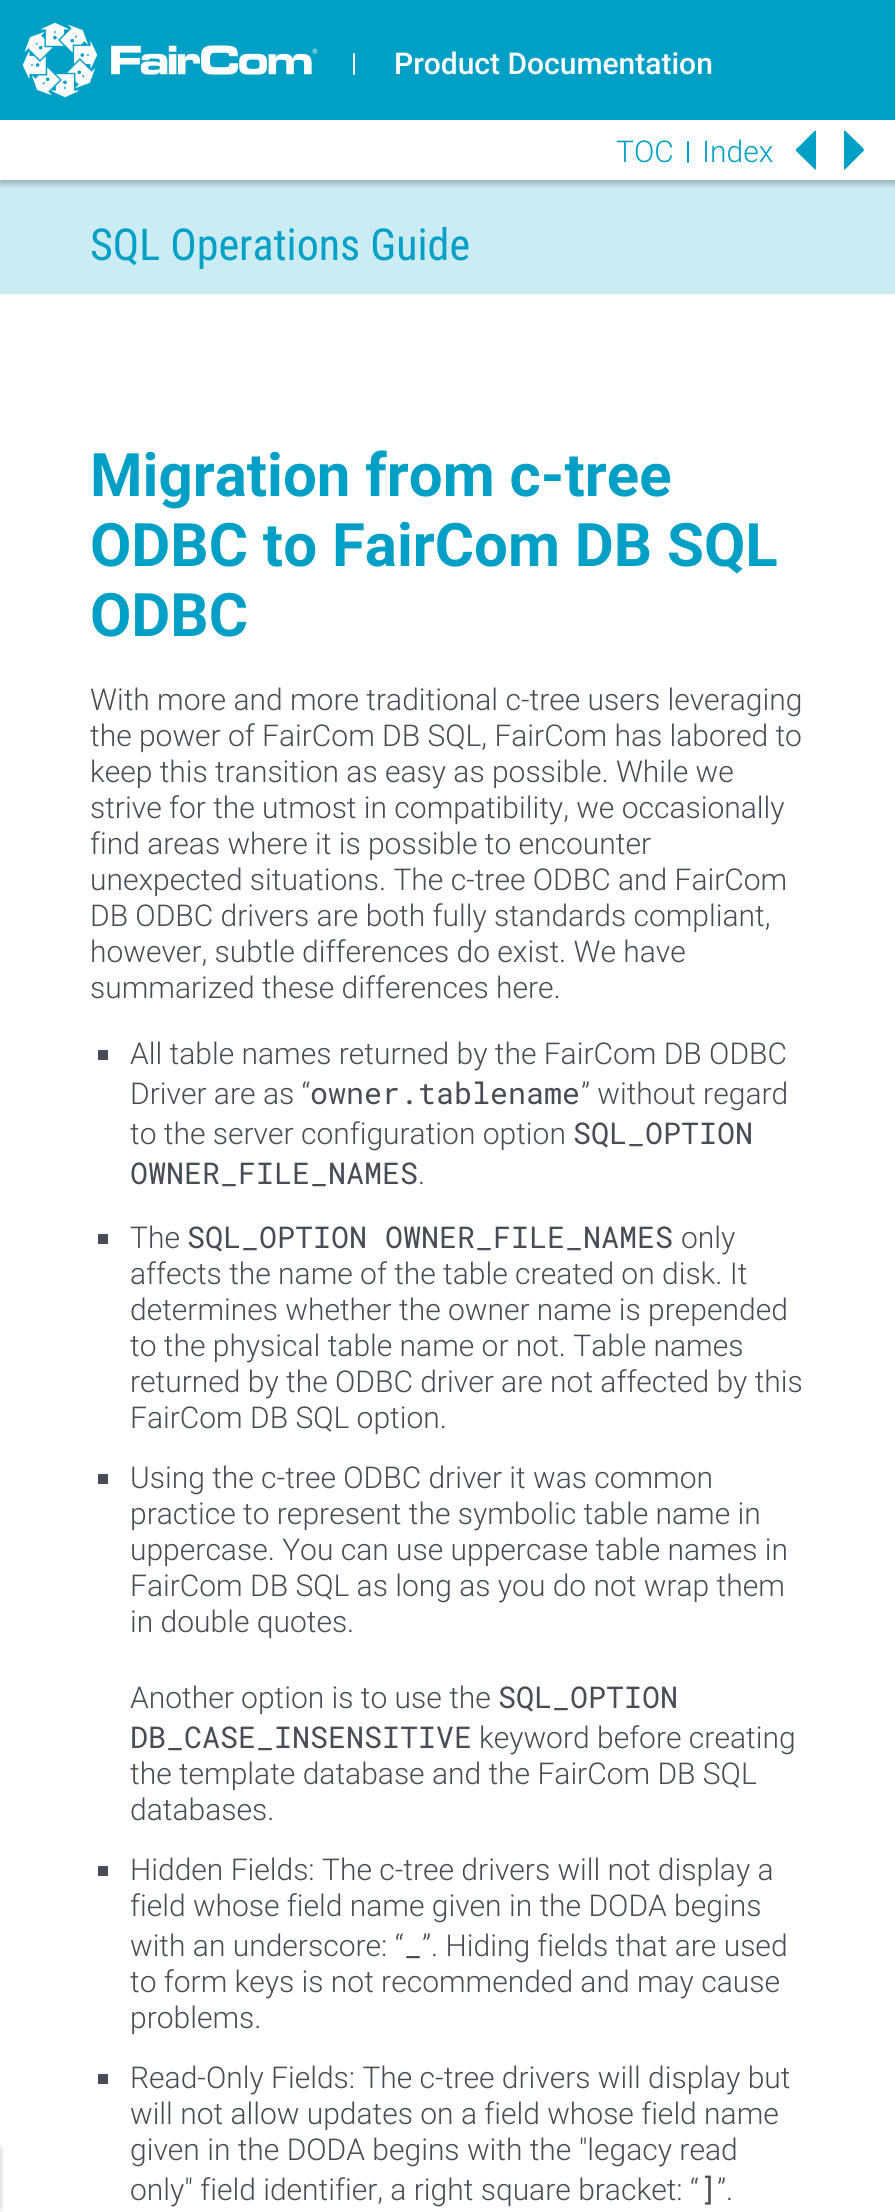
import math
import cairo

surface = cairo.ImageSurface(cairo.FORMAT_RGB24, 895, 2212)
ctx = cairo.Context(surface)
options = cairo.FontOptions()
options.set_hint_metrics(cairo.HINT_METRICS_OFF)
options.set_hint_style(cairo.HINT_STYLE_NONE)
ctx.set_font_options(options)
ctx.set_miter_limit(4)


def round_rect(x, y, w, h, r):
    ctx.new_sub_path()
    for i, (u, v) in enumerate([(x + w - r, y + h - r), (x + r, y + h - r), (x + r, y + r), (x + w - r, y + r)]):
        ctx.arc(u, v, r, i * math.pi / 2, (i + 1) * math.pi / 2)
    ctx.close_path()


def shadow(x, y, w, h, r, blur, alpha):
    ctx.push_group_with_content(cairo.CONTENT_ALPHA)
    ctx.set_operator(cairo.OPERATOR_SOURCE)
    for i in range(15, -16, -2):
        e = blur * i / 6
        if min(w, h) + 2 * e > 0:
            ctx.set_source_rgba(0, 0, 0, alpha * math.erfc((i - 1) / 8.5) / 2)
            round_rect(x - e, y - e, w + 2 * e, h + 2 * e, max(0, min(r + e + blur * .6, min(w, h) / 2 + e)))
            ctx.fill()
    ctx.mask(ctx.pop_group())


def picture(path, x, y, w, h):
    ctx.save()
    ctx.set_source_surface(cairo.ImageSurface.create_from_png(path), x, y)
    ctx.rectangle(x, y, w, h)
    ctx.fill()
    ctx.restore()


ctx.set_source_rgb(1, 1, 1)
ctx.paint()
ctx.set_source_rgb(0, 0.627, 0.776)
ctx.rectangle(0, 0, 895, 120)
ctx.fill()
picture("img1.png", 22, 22, 296, 76)
picture("img2.png", 353, 53, 2, 22)
ctx.select_font_face("Roboto Medium")
ctx.set_font_size(30)
ctx.set_source_rgb(1, 1, 1)
ctx.move_to(394, 74)
ctx.show_text("Product Documentation")
ctx.set_source_rgb(0.8, 0.925, 0.957)
ctx.rectangle(0, 180, 895, 114)
ctx.fill()
ctx.save()
ctx.rectangle(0, 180, 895, 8)
ctx.clip()
ctx.set_source_rgb(0, 0, 0)
shadow(0, 124, 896, 60, 0, 3, 0.25)
ctx.restore()
ctx.select_font_face("Roboto Light")
ctx.set_source_rgb(0, 0.627, 0.776)
ctx.move_to(616, 162)
ctx.show_text("TOC")
picture("img3.png", 687, 141, 2, 22)
ctx.move_to(702, 162)
ctx.show_text("Index")
ctx.new_path()
ctx.move_to(814.5, 131)
ctx.line_to(799, 146.5)
ctx.curve_to(797.5, 147.5, 795, 149.5, 796, 151)
ctx.line_to(815, 169.5)
ctx.curve_to(815.5, 169.5, 816, 169, 816, 168.5)
ctx.line_to(816, 131.5)
ctx.curve_to(816, 130.5, 815, 130.5, 814.5, 131)
ctx.close_path()
ctx.fill()
ctx.new_path()
ctx.move_to(844, 131.5)
ctx.line_to(844, 162.5)
ctx.curve_to(844, 171, 843, 171.5, 848.5, 166)
ctx.line_to(860.5, 154)
ctx.curve_to(865, 149.5, 865, 150.5, 861, 146)
ctx.line_to(845, 130.5)
ctx.curve_to(844.5, 130.5, 844, 131, 844, 131.5)
ctx.close_path()
ctx.fill()
ctx.set_source_rgb(0, 0, 0)
shadow(-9, 2148, 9, 60, 0, 3, 0.25)
ctx.select_font_face("Roboto Condensed")
ctx.set_font_size(44)
ctx.set_source_rgb(0, 0.627, 0.776)
ctx.move_to(90, 260)
ctx.show_text("SQL Operations Guide")
ctx.select_font_face("Roboto", cairo.FONT_SLANT_NORMAL, cairo.FONT_WEIGHT_BOLD)
ctx.set_font_size(60)
ctx.move_to(90, 496)
ctx.show_text("Migration from c-tree")
ctx.move_to(90, 566)
ctx.show_text("ODBC to FairCom DB SQL")
ctx.move_to(90, 636)
ctx.show_text("ODBC")
ctx.select_font_face("Roboto Light")
ctx.set_font_size(30)
ctx.set_source_rgb(0.278, 0.298, 0.333)
ctx.move_to(90, 710)
ctx.show_text("With more and more traditional c-tree users leveraging")
ctx.move_to(90, 746)
ctx.show_text("the power of FairCom DB SQL, FairCom has labored to")
ctx.move_to(90, 782)
ctx.show_text("keep this transition as easy as possible. While we")
ctx.move_to(90, 818)
ctx.show_text("strive for the utmost in compatibility, we occasionally")
ctx.move_to(90, 854)
ctx.show_text("find areas where it is possible to encounter")
ctx.move_to(90, 890)
ctx.show_text("unexpected situations. The c-tree ODBC and FairCom")
ctx.move_to(90, 926)
ctx.show_text("DB ODBC drivers are both fully standards compliant,")
ctx.move_to(90, 962)
ctx.show_text("however, subtle differences do exist. We have")
ctx.move_to(90, 998)
ctx.show_text("summarized these differences here.")
ctx.rectangle(98, 1050, 10, 10)
ctx.fill()
ctx.move_to(130, 1064)
ctx.show_text("All table names returned by the FairCom DB ODBC")
ctx.move_to(130, 1104)
ctx.show_text("Driver are as “")
ctx.select_font_face("Roboto Mono")
ctx.move_to(310, 1104)
ctx.show_text("owner.tablename")
ctx.select_font_face("Roboto Light")
ctx.move_to(581, 1104)
ctx.show_text("” without regard")
ctx.move_to(130, 1144)
ctx.show_text("to the server configuration option")
ctx.select_font_face("Roboto Mono")
ctx.move_to(573, 1144)
ctx.show_text("SQL_OPTION")
ctx.move_to(130, 1184)
ctx.show_text("OWNER_FILE_NAMES")
ctx.select_font_face("Roboto Light")
ctx.move_to(418, 1184)
ctx.show_text(".")
ctx.rectangle(98, 1234, 10, 10)
ctx.fill()
ctx.move_to(130, 1248)
ctx.show_text("The")
ctx.select_font_face("Roboto Mono")
ctx.move_to(187, 1248)
ctx.show_text("SQL_OPTION OWNER_FILE_NAMES")
ctx.select_font_face("Roboto Light")
ctx.move_to(681, 1248)
ctx.show_text("only")
ctx.move_to(130, 1284)
ctx.show_text("affects the name of the table created on disk. It")
ctx.move_to(130, 1320)
ctx.show_text("determines whether the owner name is prepended")
ctx.move_to(130, 1356)
ctx.show_text("to the physical table name or not. Table names")
ctx.move_to(130, 1392)
ctx.show_text("returned by the ODBC driver are not affected by this")
ctx.move_to(130, 1428)
ctx.show_text("FairCom DB SQL option.")
ctx.rectangle(98, 1474, 10, 10)
ctx.fill()
ctx.move_to(130, 1488)
ctx.show_text("Using the c-tree ODBC driver it was common")
ctx.move_to(130, 1524)
ctx.show_text("practice to represent the symbolic table name in")
ctx.move_to(130, 1560)
ctx.show_text("uppercase. You can use uppercase table names in")
ctx.move_to(130, 1596)
ctx.show_text("FairCom DB SQL as long as you do not wrap them")
ctx.move_to(130, 1632)
ctx.show_text("in double quotes.")
ctx.move_to(130, 1708)
ctx.show_text("Another option is to use the")
ctx.select_font_face("Roboto Mono")
ctx.move_to(498, 1708)
ctx.show_text("SQL_OPTION")
ctx.move_to(130, 1748)
ctx.show_text("DB_CASE_INSENSITIVE")
ctx.select_font_face("Roboto Light")
ctx.move_to(479, 1748)
ctx.show_text("keyword before creating")
ctx.move_to(130, 1784)
ctx.show_text("the template database and the FairCom DB SQL")
ctx.move_to(130, 1820)
ctx.show_text("databases.")
ctx.rectangle(98, 1866, 10, 10)
ctx.fill()
ctx.move_to(130, 1880)
ctx.show_text("Hidden Fields: The c-tree drivers will not display a")
ctx.move_to(130, 1916)
ctx.show_text("field whose field name given in the DODA begins")
ctx.move_to(130, 1956)
ctx.show_text("with an underscore: “")
ctx.select_font_face("Roboto Mono")
ctx.move_to(404, 1956)
ctx.show_text("_")
ctx.select_font_face("Roboto Light")
ctx.move_to(422, 1956)
ctx.show_text("”. Hiding fields that are used")
ctx.move_to(130, 1992)
ctx.show_text("to form keys is not recommended and may cause")
ctx.move_to(130, 2028)
ctx.show_text("problems.")
ctx.rectangle(98, 2074, 10, 10)
ctx.fill()
ctx.move_to(130, 2088)
ctx.show_text("Read-Only Fields: The c-tree drivers will display but")
ctx.move_to(130, 2124)
ctx.show_text("will not allow updates on a field whose field name")
ctx.move_to(130, 2160)
ctx.show_text("given in the DODA begins with the \"legacy read")
ctx.move_to(130, 2200)
ctx.show_text("only\" field identifier, a right square bracket: “")
ctx.select_font_face("Roboto Mono")
ctx.move_to(699, 2200)
ctx.show_text("]")
ctx.select_font_face("Roboto Light")
ctx.move_to(717, 2200)
ctx.show_text("”.")
surface.write_to_png("page.png")
